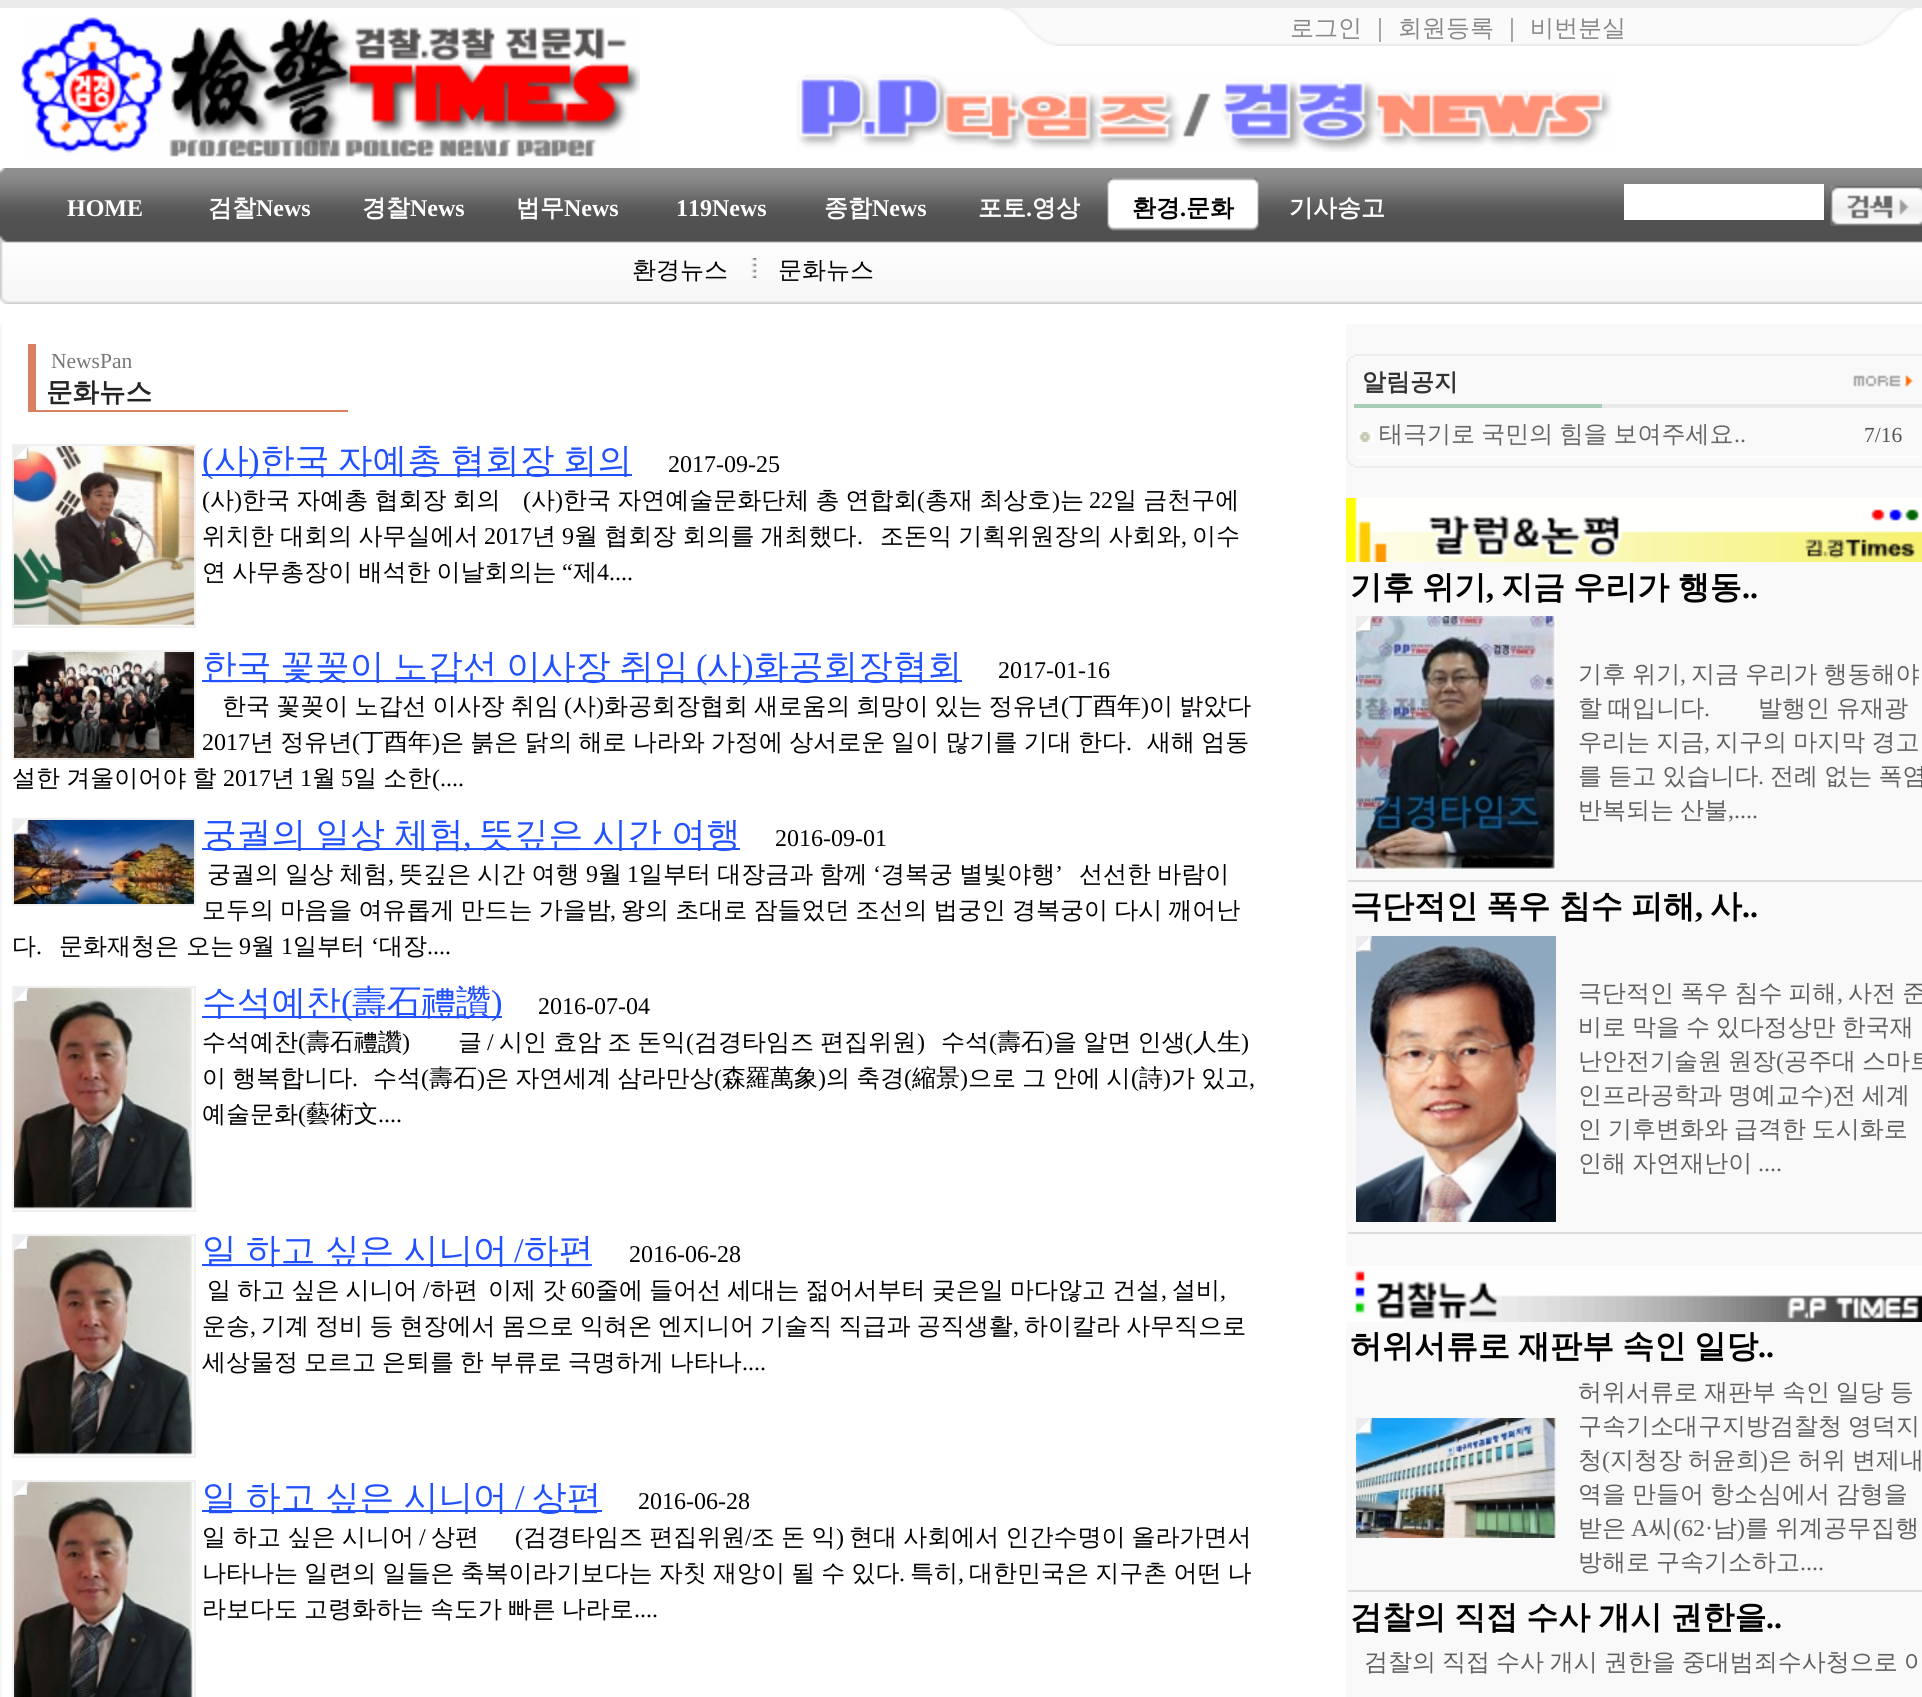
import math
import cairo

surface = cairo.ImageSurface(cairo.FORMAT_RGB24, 1922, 1697)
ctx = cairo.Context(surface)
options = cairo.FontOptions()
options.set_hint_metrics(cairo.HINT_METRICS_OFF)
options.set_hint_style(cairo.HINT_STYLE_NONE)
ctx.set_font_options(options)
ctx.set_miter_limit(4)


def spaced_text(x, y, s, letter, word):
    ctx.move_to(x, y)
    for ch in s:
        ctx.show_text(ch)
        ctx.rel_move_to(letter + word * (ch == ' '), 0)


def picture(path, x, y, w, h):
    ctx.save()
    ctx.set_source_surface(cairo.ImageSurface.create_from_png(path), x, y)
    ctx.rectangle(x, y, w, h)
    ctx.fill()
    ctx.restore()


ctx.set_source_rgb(1, 1, 1)
ctx.paint()
ctx.set_source_rgb(0.918, 0.918, 0.918)
ctx.rectangle(0, 0, 1922, 8)
ctx.fill()
picture("img1.png", 21, 17, 619, 140)
picture("img2.png", 1001, 8, 914, 38)
ctx.select_font_face("WenQuanYi Zen Hei Medium")
ctx.set_font_size(24)
ctx.set_source_rgb(0.533, 0.533, 0.533)
ctx.move_to(1290, 36)
ctx.show_text("로그인")
ctx.move_to(1368, 36)
ctx.show_text("｜")
ctx.move_to(1398, 36)
ctx.show_text("회원등록")
ctx.move_to(1500, 36)
ctx.show_text("｜")
ctx.move_to(1530, 36)
ctx.show_text("비번분실")
picture("img3.png", 796, 74, 818, 78)
picture("img4.png", 0, 168, 8, 136)
picture("img5.png", 8, 168, 1914, 136)
ctx.select_font_face("Liberation Serif", cairo.FONT_SLANT_NORMAL, cairo.FONT_WEIGHT_BOLD)
ctx.set_source_rgb(1, 1, 1)
ctx.move_to(67, 216)
ctx.show_text("HOME")
ctx.select_font_face("WenQuanYi Zen Hei", cairo.FONT_SLANT_NORMAL, cairo.FONT_WEIGHT_BOLD)
ctx.move_to(208, 216)
ctx.show_text("검찰")
ctx.select_font_face("Liberation Serif", cairo.FONT_SLANT_NORMAL, cairo.FONT_WEIGHT_BOLD)
ctx.move_to(256, 216)
ctx.show_text("News")
ctx.select_font_face("WenQuanYi Zen Hei", cairo.FONT_SLANT_NORMAL, cairo.FONT_WEIGHT_BOLD)
ctx.move_to(362, 216)
ctx.show_text("경찰")
ctx.select_font_face("Liberation Serif", cairo.FONT_SLANT_NORMAL, cairo.FONT_WEIGHT_BOLD)
ctx.move_to(410, 216)
ctx.show_text("News")
ctx.select_font_face("WenQuanYi Zen Hei", cairo.FONT_SLANT_NORMAL, cairo.FONT_WEIGHT_BOLD)
ctx.move_to(516, 216)
ctx.show_text("법무")
ctx.select_font_face("Liberation Serif", cairo.FONT_SLANT_NORMAL, cairo.FONT_WEIGHT_BOLD)
ctx.move_to(564, 216)
ctx.show_text("News")
ctx.move_to(676, 216)
ctx.show_text("119News")
ctx.select_font_face("WenQuanYi Zen Hei", cairo.FONT_SLANT_NORMAL, cairo.FONT_WEIGHT_BOLD)
ctx.move_to(824, 216)
ctx.show_text("종합")
ctx.select_font_face("Liberation Serif", cairo.FONT_SLANT_NORMAL, cairo.FONT_WEIGHT_BOLD)
ctx.move_to(872, 216)
ctx.show_text("News")
ctx.select_font_face("WenQuanYi Zen Hei", cairo.FONT_SLANT_NORMAL, cairo.FONT_WEIGHT_BOLD)
ctx.move_to(978, 216)
ctx.show_text("포토")
ctx.select_font_face("Liberation Serif", cairo.FONT_SLANT_NORMAL, cairo.FONT_WEIGHT_BOLD)
ctx.move_to(1026, 216)
ctx.show_text(".")
ctx.select_font_face("WenQuanYi Zen Hei", cairo.FONT_SLANT_NORMAL, cairo.FONT_WEIGHT_BOLD)
ctx.move_to(1032, 216)
ctx.show_text("영상")
picture("img6.png", 1107, 177, 152, 54)
ctx.set_source_rgb(0, 0, 0)
ctx.move_to(1132, 216)
ctx.show_text("환경")
ctx.select_font_face("Liberation Serif", cairo.FONT_SLANT_NORMAL, cairo.FONT_WEIGHT_BOLD)
ctx.move_to(1180, 216)
ctx.show_text(".")
ctx.select_font_face("WenQuanYi Zen Hei", cairo.FONT_SLANT_NORMAL, cairo.FONT_WEIGHT_BOLD)
ctx.move_to(1186, 216)
ctx.show_text("문화")
ctx.set_source_rgb(1, 1, 1)
ctx.move_to(1289, 216)
ctx.show_text("기사송고")
ctx.rectangle(1624, 184, 200, 36)
ctx.fill()
picture("img7.png", 1830, 186, 92, 40)
ctx.select_font_face("WenQuanYi Zen Hei Medium")
ctx.set_source_rgb(0, 0, 0)
ctx.move_to(632, 278)
ctx.show_text("환경뉴스")
picture("img8.png", 751, 258, 6, 20)
ctx.move_to(778, 278)
ctx.show_text("문화뉴스")
ctx.set_source_rgb(0.961, 0.961, 0.961)
ctx.rectangle(0, 324, 2, 1373)
ctx.fill()
ctx.set_source_rgb(0.843, 0.506, 0.373)
ctx.rectangle(28, 410, 320, 2)
ctx.fill()
ctx.rectangle(28, 344, 8, 68)
ctx.fill()
ctx.select_font_face("Liberation Serif")
ctx.set_font_size(21.5)
ctx.set_source_rgb(0.467, 0.467, 0.467)
ctx.move_to(51, 368)
ctx.show_text("NewsPan")
ctx.select_font_face("WenQuanYi Zen Hei", cairo.FONT_SLANT_NORMAL, cairo.FONT_WEIGHT_BOLD)
ctx.set_font_size(26.5)
ctx.set_source_rgb(0.141, 0.141, 0.141)
ctx.move_to(46, 401)
ctx.show_text("문화뉴스")
ctx.rectangle(13, 445, 182, 182)
ctx.set_source_rgb(0.941, 0.941, 0.941)
ctx.stroke()
picture("img9.png", 14, 446, 180, 180)
ctx.set_source_rgb(0.129, 0.318, 1)
ctx.rectangle(202, 474, 430, 2)
ctx.fill()
ctx.select_font_face("Liberation Serif")
ctx.set_font_size(34.7)
ctx.move_to(202, 472)
ctx.show_text("(")
ctx.select_font_face("WenQuanYi Zen Hei Medium")
ctx.move_to(214, 472)
ctx.show_text("사")
ctx.select_font_face("Liberation Serif")
ctx.move_to(248, 472)
ctx.show_text(")")
ctx.select_font_face("WenQuanYi Zen Hei Medium")
spaced_text(260, 472, "한국 자예총 협회장 회의", 0, -2)
ctx.select_font_face("Liberation Serif")
ctx.set_font_size(24)
ctx.set_source_rgb(0, 0, 0)
ctx.move_to(668, 472)
ctx.show_text("2017-09-25")
ctx.move_to(202, 508)
ctx.show_text("(")
ctx.select_font_face("WenQuanYi Zen Hei Medium")
ctx.move_to(210, 508)
ctx.show_text("사")
ctx.select_font_face("Liberation Serif")
ctx.move_to(234, 508)
ctx.show_text(")")
ctx.select_font_face("WenQuanYi Zen Hei Medium")
spaced_text(242, 508, "한국 자예총 협회장 회의", 0, -1)
ctx.select_font_face("Liberation Serif")
ctx.move_to(523, 508)
ctx.show_text("(")
ctx.select_font_face("WenQuanYi Zen Hei Medium")
ctx.move_to(531, 508)
ctx.show_text("사")
ctx.select_font_face("Liberation Serif")
ctx.move_to(555, 508)
ctx.show_text(")")
ctx.select_font_face("WenQuanYi Zen Hei Medium")
spaced_text(563, 508, "한국 자연예술문화단체 총 연합회", 0, -1)
ctx.select_font_face("Liberation Serif")
ctx.move_to(917, 508)
ctx.show_text("(")
ctx.select_font_face("WenQuanYi Zen Hei Medium")
spaced_text(925, 508, "총재 최상호", 0, -1)
ctx.select_font_face("Liberation Serif")
ctx.move_to(1052, 508)
ctx.show_text(")")
ctx.select_font_face("WenQuanYi Zen Hei Medium")
ctx.move_to(1060, 508)
ctx.show_text("는")
ctx.select_font_face("Liberation Serif")
ctx.move_to(1089, 508)
ctx.show_text("22")
ctx.select_font_face("WenQuanYi Zen Hei Medium")
spaced_text(1113, 508, "일 금천구에", 0, -1)
spaced_text(202, 544, "위치한 대회의 사무실에서", 0, -1)
ctx.select_font_face("Liberation Serif")
ctx.move_to(484, 544)
ctx.show_text("2017")
ctx.select_font_face("WenQuanYi Zen Hei Medium")
ctx.move_to(532, 544)
ctx.show_text("년")
ctx.select_font_face("Liberation Serif")
ctx.move_to(562, 544)
ctx.show_text("9")
ctx.select_font_face("WenQuanYi Zen Hei Medium")
spaced_text(574, 544, "월 협회장 회의를 개최했다", 0, -1)
ctx.select_font_face("Liberation Serif")
ctx.move_to(857, 544)
ctx.show_text(".")
ctx.select_font_face("WenQuanYi Zen Hei Medium")
spaced_text(880, 544, "조돈익 기획위원장의 사회와", 0, -1)
ctx.select_font_face("Liberation Serif")
ctx.move_to(1181, 544)
ctx.show_text(",")
ctx.select_font_face("WenQuanYi Zen Hei Medium")
ctx.move_to(1192, 544)
ctx.show_text("이수")
spaced_text(202, 580, "연 사무총장이 배석한 이날회의는", 0, -1)
ctx.select_font_face("Liberation Serif")
ctx.move_to(562, 580)
ctx.show_text("“")
ctx.select_font_face("WenQuanYi Zen Hei Medium")
ctx.move_to(573, 580)
ctx.show_text("제")
ctx.select_font_face("Liberation Serif")
ctx.move_to(597, 580)
ctx.show_text("4....")
ctx.rectangle(13, 651, 182, 108)
ctx.set_source_rgb(0.941, 0.941, 0.941)
ctx.stroke()
picture("img10.png", 14, 652, 180, 106)
ctx.set_source_rgb(0.129, 0.318, 1)
ctx.rectangle(202, 680, 760, 2)
ctx.fill()
ctx.select_font_face("WenQuanYi Zen Hei Medium")
ctx.set_font_size(34.7)
spaced_text(202, 678, "한국 꽃꽂이 노갑선 이사장 취임", 0, -1.5)
ctx.select_font_face("Liberation Serif")
ctx.move_to(696, 678)
ctx.show_text("(")
ctx.select_font_face("WenQuanYi Zen Hei Medium")
ctx.move_to(707, 678)
ctx.show_text("사")
ctx.select_font_face("Liberation Serif")
ctx.move_to(742, 678)
ctx.show_text(")")
ctx.select_font_face("WenQuanYi Zen Hei Medium")
ctx.move_to(754, 678)
ctx.show_text("화공회장협회")
ctx.select_font_face("Liberation Serif")
ctx.set_font_size(24)
ctx.set_source_rgb(0, 0, 0)
ctx.move_to(998, 678)
ctx.show_text("2017-01-16")
ctx.select_font_face("WenQuanYi Zen Hei Medium")
spaced_text(222, 714, "한국 꽃꽂이 노갑선 이사장 취임", 0, -1)
ctx.select_font_face("Liberation Serif")
ctx.move_to(564, 714)
ctx.show_text("(")
ctx.select_font_face("WenQuanYi Zen Hei Medium")
ctx.move_to(572, 714)
ctx.show_text("사")
ctx.select_font_face("Liberation Serif")
ctx.move_to(596, 714)
ctx.show_text(")")
ctx.select_font_face("WenQuanYi Zen Hei Medium")
spaced_text(604, 714, "화공회장협회 새로움의 희망이 있는 정유년", 0, -1)
ctx.select_font_face("Liberation Serif")
ctx.move_to(1061, 714)
ctx.show_text("(")
ctx.select_font_face("WenQuanYi Zen Hei Medium")
ctx.move_to(1069, 714)
ctx.show_text("丁酉年")
ctx.select_font_face("Liberation Serif")
ctx.move_to(1141, 714)
ctx.show_text(")")
ctx.select_font_face("WenQuanYi Zen Hei Medium")
spaced_text(1149, 714, "이 밝았다", 0, -1)
ctx.select_font_face("Liberation Serif")
ctx.move_to(202, 750)
ctx.show_text("2017")
ctx.select_font_face("WenQuanYi Zen Hei Medium")
spaced_text(250, 750, "년 정유년", 0, -1)
ctx.select_font_face("Liberation Serif")
ctx.move_to(352, 750)
ctx.show_text("(")
ctx.select_font_face("WenQuanYi Zen Hei Medium")
ctx.move_to(360, 750)
ctx.show_text("丁酉年")
ctx.select_font_face("Liberation Serif")
ctx.move_to(432, 750)
ctx.show_text(")")
ctx.select_font_face("WenQuanYi Zen Hei Medium")
spaced_text(440, 750, "은 붉은 닭의 해로 나라와 가정에 상서로운 일이 많기를 기대 한다", 0, -1)
ctx.select_font_face("Liberation Serif")
ctx.move_to(1126, 750)
ctx.show_text(".")
ctx.select_font_face("WenQuanYi Zen Hei Medium")
spaced_text(1147, 750, "새해 엄동", 0, -1)
spaced_text(12, 786, "설한 겨울이어야 할", 0, -1)
ctx.select_font_face("Liberation Serif")
ctx.move_to(223, 786)
ctx.show_text("2017")
ctx.select_font_face("WenQuanYi Zen Hei Medium")
ctx.move_to(271, 786)
ctx.show_text("년")
ctx.select_font_face("Liberation Serif")
ctx.move_to(300, 786)
ctx.show_text("1")
ctx.select_font_face("WenQuanYi Zen Hei Medium")
ctx.move_to(312, 786)
ctx.show_text("월")
ctx.select_font_face("Liberation Serif")
ctx.move_to(341, 786)
ctx.show_text("5")
ctx.select_font_face("WenQuanYi Zen Hei Medium")
spaced_text(353, 786, "일 소한", 0, -1)
ctx.select_font_face("Liberation Serif")
ctx.move_to(432, 786)
ctx.show_text("(....")
ctx.rectangle(13, 819, 182, 86)
ctx.set_source_rgb(0.941, 0.941, 0.941)
ctx.stroke()
picture("img11.png", 14, 820, 180, 84)
ctx.set_source_rgb(0.129, 0.318, 1)
ctx.rectangle(202, 848, 538, 2)
ctx.fill()
ctx.select_font_face("WenQuanYi Zen Hei Medium")
ctx.set_font_size(34.7)
spaced_text(202, 846, "궁궐의 일상 체험", 0, -1)
ctx.select_font_face("Liberation Serif")
ctx.move_to(463, 846)
ctx.show_text(",")
ctx.select_font_face("WenQuanYi Zen Hei Medium")
spaced_text(479, 846, "뜻깊은 시간 여행", 0, -1)
ctx.select_font_face("Liberation Serif")
ctx.set_font_size(24)
ctx.set_source_rgb(0, 0, 0)
ctx.move_to(775, 846)
ctx.show_text("2016-09-01")
ctx.select_font_face("WenQuanYi Zen Hei Medium")
spaced_text(207, 882, "궁궐의 일상 체험", 0, -1)
spaced_text(399, 882, "뜻깊은 시간 여행", 0, -1)
ctx.select_font_face("Liberation Serif")
ctx.move_to(586, 882)
ctx.show_text("9")
ctx.select_font_face("WenQuanYi Zen Hei Medium")
ctx.move_to(598, 882)
ctx.show_text("월")
ctx.select_font_face("Liberation Serif")
ctx.move_to(627, 882)
ctx.show_text("1")
ctx.select_font_face("WenQuanYi Zen Hei Medium")
spaced_text(639, 882, "일부터 대장금과 함께", 0, -1)
ctx.select_font_face("Liberation Serif")
ctx.move_to(873, 882)
ctx.show_text("‘")
ctx.select_font_face("WenQuanYi Zen Hei Medium")
spaced_text(881, 882, "경복궁 별빛야행", 0, -1)
ctx.select_font_face("Liberation Serif")
ctx.move_to(1055, 882)
ctx.show_text("’")
ctx.select_font_face("WenQuanYi Zen Hei Medium")
spaced_text(1079, 882, "선선한 바람이", 0, -1)
ctx.select_font_face("Liberation Serif")
ctx.move_to(388, 882)
ctx.show_text(",")
ctx.select_font_face("WenQuanYi Zen Hei Medium")
spaced_text(202, 918, "모두의 마음을 여유롭게 만드는 가을밤", 0, -1)
ctx.select_font_face("Liberation Serif")
ctx.move_to(610, 918)
ctx.show_text(",")
ctx.select_font_face("WenQuanYi Zen Hei Medium")
spaced_text(621, 918, "왕의 초대로 잠들었던 조선의 법궁인 경복궁이 다시 깨어난", 0, -1)
ctx.move_to(12, 954)
ctx.show_text("다")
ctx.move_to(59, 954)
ctx.show_text("문화재청은 오는")
ctx.select_font_face("Liberation Serif")
ctx.move_to(239, 954)
ctx.show_text("9")
ctx.select_font_face("WenQuanYi Zen Hei Medium")
ctx.move_to(251, 954)
ctx.show_text("월")
ctx.select_font_face("Liberation Serif")
ctx.move_to(281, 954)
ctx.show_text("1")
ctx.select_font_face("WenQuanYi Zen Hei Medium")
ctx.move_to(293, 954)
ctx.show_text("일부터")
ctx.select_font_face("Liberation Serif")
ctx.move_to(371, 954)
ctx.show_text("‘")
ctx.select_font_face("WenQuanYi Zen Hei Medium")
ctx.move_to(379, 954)
ctx.show_text("대장")
ctx.select_font_face("Liberation Serif")
ctx.move_to(36, 954)
ctx.show_text(".")
ctx.move_to(427, 954)
ctx.show_text("....")
ctx.rectangle(13, 987, 182, 224)
ctx.set_source_rgb(0.941, 0.941, 0.941)
ctx.stroke()
picture("img12.png", 14, 988, 180, 222)
ctx.set_source_rgb(0.129, 0.318, 1)
ctx.rectangle(202, 1016, 300, 2)
ctx.fill()
ctx.select_font_face("WenQuanYi Zen Hei Medium")
ctx.set_font_size(34.7)
ctx.move_to(202, 1014)
ctx.show_text("수석예찬")
ctx.select_font_face("Liberation Serif")
ctx.move_to(341, 1014)
ctx.show_text("(")
ctx.select_font_face("WenQuanYi Zen Hei Medium")
ctx.move_to(352, 1014)
ctx.show_text("壽石禮讚")
ctx.select_font_face("Liberation Serif")
ctx.move_to(491, 1014)
ctx.show_text(")")
ctx.set_font_size(24)
ctx.set_source_rgb(0, 0, 0)
ctx.move_to(538, 1014)
ctx.show_text("2016-07-04")
ctx.select_font_face("WenQuanYi Zen Hei Medium")
ctx.move_to(202, 1050)
ctx.show_text("수석예찬")
ctx.select_font_face("Liberation Serif")
ctx.move_to(298, 1050)
ctx.show_text("(")
ctx.select_font_face("WenQuanYi Zen Hei Medium")
ctx.move_to(306, 1050)
ctx.show_text("壽石禮讚")
ctx.select_font_face("Liberation Serif")
ctx.move_to(402, 1050)
ctx.show_text(")")
ctx.select_font_face("WenQuanYi Zen Hei Medium")
ctx.move_to(458, 1050)
ctx.show_text("글")
ctx.select_font_face("Liberation Serif")
ctx.move_to(487, 1050)
ctx.show_text("/")
ctx.select_font_face("WenQuanYi Zen Hei Medium")
spaced_text(499, 1050, "시인 효암 조 돈익", 0, -1)
ctx.select_font_face("Liberation Serif")
ctx.move_to(686, 1050)
ctx.show_text("(")
ctx.select_font_face("WenQuanYi Zen Hei Medium")
spaced_text(694, 1050, "검경타임즈 편집위원", 0, -1)
ctx.select_font_face("Liberation Serif")
ctx.move_to(917, 1050)
ctx.show_text(")")
ctx.select_font_face("WenQuanYi Zen Hei Medium")
ctx.move_to(941, 1050)
ctx.show_text("수석")
ctx.select_font_face("Liberation Serif")
ctx.move_to(989, 1050)
ctx.show_text("(")
ctx.select_font_face("WenQuanYi Zen Hei Medium")
ctx.move_to(997, 1050)
ctx.show_text("壽石")
ctx.select_font_face("Liberation Serif")
ctx.move_to(1045, 1050)
ctx.show_text(")")
ctx.select_font_face("WenQuanYi Zen Hei Medium")
spaced_text(1053, 1050, "을 알면 인생", 0, -1)
ctx.select_font_face("Liberation Serif")
ctx.move_to(1185, 1050)
ctx.show_text("(")
ctx.select_font_face("WenQuanYi Zen Hei Medium")
ctx.move_to(1193, 1050)
ctx.show_text("人生")
ctx.select_font_face("Liberation Serif")
ctx.move_to(1241, 1050)
ctx.show_text(")")
ctx.select_font_face("WenQuanYi Zen Hei Medium")
spaced_text(202, 1086, "이 행복합니다", 0, -1)
ctx.select_font_face("Liberation Serif")
ctx.move_to(352, 1086)
ctx.show_text(".")
ctx.select_font_face("WenQuanYi Zen Hei Medium")
ctx.move_to(373, 1086)
ctx.show_text("수석")
ctx.select_font_face("Liberation Serif")
ctx.move_to(421, 1086)
ctx.show_text("(")
ctx.select_font_face("WenQuanYi Zen Hei Medium")
ctx.move_to(429, 1086)
ctx.show_text("壽石")
ctx.select_font_face("Liberation Serif")
ctx.move_to(477, 1086)
ctx.show_text(")")
ctx.select_font_face("WenQuanYi Zen Hei Medium")
spaced_text(485, 1086, "은 자연세계 삼라만상", 0, -1)
ctx.select_font_face("Liberation Serif")
ctx.move_to(714, 1086)
ctx.show_text("(")
ctx.select_font_face("WenQuanYi Zen Hei Medium")
ctx.move_to(722, 1086)
ctx.show_text("森羅萬象")
ctx.select_font_face("Liberation Serif")
ctx.move_to(818, 1086)
ctx.show_text(")")
ctx.select_font_face("WenQuanYi Zen Hei Medium")
spaced_text(826, 1086, "의 축경", 0, -1)
ctx.select_font_face("Liberation Serif")
ctx.move_to(904, 1086)
ctx.show_text("(")
ctx.select_font_face("WenQuanYi Zen Hei Medium")
ctx.move_to(912, 1086)
ctx.show_text("縮景")
ctx.select_font_face("Liberation Serif")
ctx.move_to(960, 1086)
ctx.show_text(")")
ctx.select_font_face("WenQuanYi Zen Hei Medium")
spaced_text(968, 1086, "으로 그 안에 시", 0, -1)
ctx.select_font_face("Liberation Serif")
ctx.move_to(1131, 1086)
ctx.show_text("(")
ctx.select_font_face("WenQuanYi Zen Hei Medium")
ctx.move_to(1139, 1086)
ctx.show_text("詩")
ctx.select_font_face("Liberation Serif")
ctx.move_to(1163, 1086)
ctx.show_text(")")
ctx.select_font_face("WenQuanYi Zen Hei Medium")
spaced_text(1171, 1086, "가 있고", 0, -1)
ctx.select_font_face("Liberation Serif")
ctx.move_to(1249, 1086)
ctx.show_text(",")
ctx.select_font_face("WenQuanYi Zen Hei Medium")
ctx.move_to(202, 1122)
ctx.show_text("예술문화")
ctx.select_font_face("Liberation Serif")
ctx.move_to(298, 1122)
ctx.show_text("(")
ctx.select_font_face("WenQuanYi Zen Hei Medium")
ctx.move_to(306, 1122)
ctx.show_text("藝術文")
ctx.select_font_face("Liberation Serif")
ctx.move_to(378, 1122)
ctx.show_text("....")
ctx.rectangle(13, 1235, 182, 222)
ctx.set_source_rgb(0.941, 0.941, 0.941)
ctx.stroke()
picture("img13.png", 14, 1236, 180, 220)
ctx.set_source_rgb(0.129, 0.318, 1)
ctx.rectangle(202, 1264, 390, 2)
ctx.fill()
ctx.select_font_face("WenQuanYi Zen Hei Medium")
ctx.set_font_size(34.7)
spaced_text(202, 1262, "일 하고 싶은 시니어", 0, -1)
ctx.select_font_face("Liberation Serif")
ctx.move_to(514, 1262)
ctx.show_text("/")
ctx.select_font_face("WenQuanYi Zen Hei Medium")
ctx.move_to(524, 1262)
ctx.show_text("하편")
ctx.select_font_face("Liberation Serif")
ctx.set_font_size(24)
ctx.set_source_rgb(0, 0, 0)
ctx.move_to(629, 1262)
ctx.show_text("2016-06-28")
ctx.select_font_face("WenQuanYi Zen Hei Medium")
spaced_text(207, 1298, "일 하고 싶은 시니어", 0, -1)
ctx.select_font_face("Liberation Serif")
ctx.move_to(423, 1298)
ctx.show_text("/")
ctx.select_font_face("WenQuanYi Zen Hei Medium")
ctx.move_to(430, 1298)
ctx.show_text("하편")
spaced_text(488, 1298, "이제 갓", 0, -1)
ctx.select_font_face("Liberation Serif")
ctx.move_to(571, 1298)
ctx.show_text("60")
ctx.select_font_face("WenQuanYi Zen Hei Medium")
spaced_text(595, 1298, "줄에 들어선 세대는 젊어서부터 궂은일 마다않고 건설", 0, -1)
ctx.select_font_face("Liberation Serif")
ctx.move_to(1161, 1298)
ctx.show_text(",")
ctx.select_font_face("WenQuanYi Zen Hei Medium")
ctx.move_to(1172, 1298)
ctx.show_text("설비")
ctx.select_font_face("Liberation Serif")
ctx.move_to(1220, 1298)
ctx.show_text(",")
ctx.select_font_face("WenQuanYi Zen Hei Medium")
ctx.move_to(202, 1334)
ctx.show_text("운송")
ctx.select_font_face("Liberation Serif")
ctx.move_to(250, 1334)
ctx.show_text(",")
ctx.select_font_face("WenQuanYi Zen Hei Medium")
spaced_text(261, 1334, "기계 정비 등 현장에서 몸으로 익혀온 엔지니어 기술직 직급과 공직생활", 0, -1)
ctx.select_font_face("Liberation Serif")
ctx.move_to(1013, 1334)
ctx.show_text(",")
ctx.select_font_face("WenQuanYi Zen Hei Medium")
spaced_text(1024, 1334, "하이칼라 사무직으로", 0, -1)
spaced_text(202, 1370, "세상물정 모르고 은퇴를 한 부류로 극명하게 나타나", 0, -1.25)
ctx.select_font_face("Liberation Serif")
ctx.move_to(742, 1370)
ctx.show_text("....")
ctx.rectangle(13, 1481, 182, 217)
ctx.set_source_rgb(0.941, 0.941, 0.941)
ctx.stroke()
picture("img14.png", 14, 1482, 180, 215)
ctx.set_source_rgb(0.129, 0.318, 1)
ctx.rectangle(202, 1510, 400, 2)
ctx.fill()
ctx.select_font_face("WenQuanYi Zen Hei Medium")
ctx.set_font_size(34.7)
spaced_text(202, 1509, "일 하고 싶은 시니어", 0, -1)
ctx.select_font_face("Liberation Serif")
ctx.move_to(515, 1509)
ctx.show_text("/")
ctx.select_font_face("WenQuanYi Zen Hei Medium")
ctx.move_to(532, 1509)
ctx.show_text("상편")
ctx.select_font_face("Liberation Serif")
ctx.set_font_size(24)
ctx.set_source_rgb(0, 0, 0)
ctx.move_to(638, 1509)
ctx.show_text("2016-06-28")
ctx.select_font_face("WenQuanYi Zen Hei Medium")
spaced_text(202, 1545, "일 하고 싶은 시니어", 0, -0.5)
ctx.select_font_face("Liberation Serif")
ctx.move_to(419, 1545)
ctx.show_text("/")
ctx.select_font_face("WenQuanYi Zen Hei Medium")
ctx.move_to(431, 1545)
ctx.show_text("상편")
ctx.select_font_face("Liberation Serif")
ctx.move_to(515, 1545)
ctx.show_text("(")
ctx.select_font_face("WenQuanYi Zen Hei Medium")
spaced_text(523, 1545, "검경타임즈 편집위원", 0, -1)
ctx.select_font_face("Liberation Serif")
ctx.move_to(745, 1545)
ctx.show_text("/")
ctx.select_font_face("WenQuanYi Zen Hei Medium")
spaced_text(751, 1545, "조 돈 익", 0, -1)
ctx.select_font_face("Liberation Serif")
ctx.move_to(836, 1545)
ctx.show_text(")")
ctx.select_font_face("WenQuanYi Zen Hei Medium")
spaced_text(849, 1545, "현대 사회에서 인간수명이 올라가면서", 0, -1)
spaced_text(202, 1581, "나타나는 일련의 일들은 축복이라기보다는 자칫 재앙이 될 수 있다", 0, -1)
ctx.select_font_face("Liberation Serif")
ctx.move_to(899, 1581)
ctx.show_text(".")
ctx.select_font_face("WenQuanYi Zen Hei Medium")
ctx.move_to(910, 1581)
ctx.show_text("특히")
ctx.select_font_face("Liberation Serif")
ctx.move_to(958, 1581)
ctx.show_text(",")
ctx.select_font_face("WenQuanYi Zen Hei Medium")
spaced_text(969, 1581, "대한민국은 지구촌 어떤 나", 0, -1)
spaced_text(202, 1617, "라보다도 고령화하는 속도가 빠른 나라로", 0, -1.25)
ctx.select_font_face("Liberation Serif")
ctx.move_to(634, 1617)
ctx.show_text("....")
ctx.set_source_rgb(0.973, 0.973, 0.973)
ctx.rectangle(1346, 324, 576, 1373)
ctx.fill()
ctx.set_source_rgb(0.933, 0.933, 0.933)
ctx.rectangle(1354, 354, 568, 2)
ctx.fill()
ctx.rectangle(1350, 356, 4, 2)
ctx.fill()
ctx.rectangle(1348, 358, 2, 4)
ctx.fill()
ctx.rectangle(1346, 362, 2, 98)
ctx.fill()
ctx.select_font_face("WenQuanYi Zen Hei", cairo.FONT_SLANT_NORMAL, cairo.FONT_WEIGHT_BOLD)
ctx.set_source_rgb(0.2, 0.2, 0.2)
ctx.move_to(1362, 390)
ctx.show_text("알림공지")
picture("img15.png", 1853, 375, 60, 12)
ctx.set_source_rgb(0.663, 0.804, 0.718)
ctx.rectangle(1354, 404, 248, 4)
ctx.fill()
ctx.set_source_rgb(0.914, 0.914, 0.914)
ctx.rectangle(1602, 404, 320, 4)
ctx.fill()
picture("img16.png", 1358, 432, 16, 10)
ctx.select_font_face("WenQuanYi Zen Hei Medium")
ctx.set_source_rgb(0.4, 0.4, 0.4)
spaced_text(1379, 442, "태극기로 국민의 힘을 보여주세요", 0, -1)
ctx.select_font_face("Liberation Serif")
ctx.move_to(1734, 442)
ctx.show_text("..")
ctx.set_font_size(21.5)
ctx.set_source_rgb(0.333, 0.333, 0.333)
ctx.move_to(1864, 442)
ctx.show_text("7/16")
ctx.set_source_rgb(1, 1, 1)
ctx.rectangle(1356, 456, 564, 2)
ctx.fill()
ctx.set_source_rgb(0.933, 0.933, 0.933)
ctx.rectangle(1348, 460, 2, 4)
ctx.fill()
ctx.rectangle(1350, 464, 4, 2)
ctx.fill()
ctx.rectangle(1354, 466, 568, 2)
ctx.fill()
picture("img17.png", 1346, 498, 576, 64)
ctx.select_font_face("WenQuanYi Zen Hei", cairo.FONT_SLANT_NORMAL, cairo.FONT_WEIGHT_BOLD)
ctx.set_font_size(32)
ctx.set_source_rgb(0, 0, 0)
spaced_text(1350, 598, "기후 위기", 0, -1.25)
ctx.select_font_face("Liberation Serif", cairo.FONT_SLANT_NORMAL, cairo.FONT_WEIGHT_BOLD)
ctx.move_to(1486, 598)
ctx.show_text(",")
ctx.select_font_face("WenQuanYi Zen Hei", cairo.FONT_SLANT_NORMAL, cairo.FONT_WEIGHT_BOLD)
spaced_text(1501, 598, "지금 우리가 행동", 0, -1.25)
ctx.select_font_face("Liberation Serif", cairo.FONT_SLANT_NORMAL, cairo.FONT_WEIGHT_BOLD)
ctx.move_to(1742, 598)
ctx.show_text("..")
ctx.set_source_rgb(1, 1, 1)
ctx.rectangle(1555, 616, 1, 254)
ctx.fill()
picture("img18.png", 1356, 616, 199, 254)
ctx.select_font_face("WenQuanYi Zen Hei Medium")
ctx.set_font_size(24)
ctx.set_source_rgb(0.376, 0.376, 0.376)
spaced_text(1578, 682, "기후 위기", 0, -1)
ctx.select_font_face("Liberation Serif")
ctx.move_to(1680, 682)
ctx.show_text(",")
ctx.select_font_face("WenQuanYi Zen Hei Medium")
spaced_text(1691, 682, "지금 우리가 행동해야", 0, -1)
spaced_text(1578, 716, "할 때입니다", 0, -1)
ctx.select_font_face("Liberation Serif")
ctx.move_to(1704, 716)
ctx.show_text(".")
ctx.select_font_face("WenQuanYi Zen Hei Medium")
spaced_text(1758, 716, "발행인 유재광", 0, -1)
spaced_text(1578, 750, "우리는 지금", 0, -1)
ctx.select_font_face("Liberation Serif")
ctx.move_to(1704, 750)
ctx.show_text(",")
ctx.select_font_face("WenQuanYi Zen Hei Medium")
spaced_text(1715, 750, "지구의 마지막 경고", 0, -1)
spaced_text(1578, 784, "를 듣고 있습니다", 0, -1)
ctx.select_font_face("Liberation Serif")
ctx.move_to(1758, 784)
ctx.show_text(".")
ctx.select_font_face("WenQuanYi Zen Hei Medium")
spaced_text(1770, 784, "전례 없는 폭염", 0, -1)
spaced_text(1578, 818, "반복되는 산불", 0, -1.25)
ctx.select_font_face("Liberation Serif")
ctx.move_to(1728, 818)
ctx.show_text(",....")
ctx.set_source_rgb(0.863, 0.863, 0.863)
ctx.rectangle(1348, 880, 574, 2)
ctx.fill()
ctx.select_font_face("WenQuanYi Zen Hei", cairo.FONT_SLANT_NORMAL, cairo.FONT_WEIGHT_BOLD)
ctx.set_font_size(32)
ctx.set_source_rgb(0, 0, 0)
spaced_text(1350, 917, "극단적인 폭우 침수 피해", 0, -1.25)
ctx.select_font_face("Liberation Serif", cairo.FONT_SLANT_NORMAL, cairo.FONT_WEIGHT_BOLD)
ctx.move_to(1695, 917)
ctx.show_text(",")
ctx.select_font_face("WenQuanYi Zen Hei", cairo.FONT_SLANT_NORMAL, cairo.FONT_WEIGHT_BOLD)
ctx.move_to(1710, 917)
ctx.show_text("사")
ctx.select_font_face("Liberation Serif", cairo.FONT_SLANT_NORMAL, cairo.FONT_WEIGHT_BOLD)
ctx.move_to(1742, 917)
ctx.show_text("..")
picture("img19.png", 1356, 936, 200, 286)
ctx.select_font_face("WenQuanYi Zen Hei Medium")
ctx.set_font_size(24)
ctx.set_source_rgb(0.376, 0.376, 0.376)
spaced_text(1578, 1001, "극단적인 폭우 침수 피해", 0, -1)
ctx.select_font_face("Liberation Serif")
ctx.move_to(1837, 1001)
ctx.show_text(",")
ctx.select_font_face("WenQuanYi Zen Hei Medium")
spaced_text(1848, 1001, "사전 준", 0, -1)
spaced_text(1578, 1035, "비로 막을 수 있다정상만 한국재", 0, -1.25)
spaced_text(1578, 1069, "난안전기술원 원장", 0, -1.25)
ctx.select_font_face("Liberation Serif")
ctx.move_to(1776, 1069)
ctx.show_text("(")
ctx.select_font_face("WenQuanYi Zen Hei Medium")
spaced_text(1784, 1069, "공주대 스마트", 0, -1.25)
spaced_text(1578, 1103, "인프라공학과 명예교수", 0, -1.25)
ctx.select_font_face("Liberation Serif")
ctx.move_to(1824, 1103)
ctx.show_text(")")
ctx.select_font_face("WenQuanYi Zen Hei Medium")
spaced_text(1832, 1103, "전 세계", 0, -1.25)
spaced_text(1578, 1137, "인 기후변화와 급격한 도시화로", 0, -1.25)
spaced_text(1578, 1171, "인해 자연재난이", 0, -1)
ctx.select_font_face("Liberation Serif")
ctx.move_to(1758, 1171)
ctx.show_text("....")
ctx.set_source_rgb(0.863, 0.863, 0.863)
ctx.rectangle(1348, 1232, 574, 2)
ctx.fill()
picture("img20.png", 1346, 1266, 576, 56)
ctx.select_font_face("WenQuanYi Zen Hei", cairo.FONT_SLANT_NORMAL, cairo.FONT_WEIGHT_BOLD)
ctx.set_font_size(32)
ctx.set_source_rgb(0, 0, 0)
spaced_text(1350, 1357, "허위서류로 재판부 속인 일당", 0, -1.5)
ctx.select_font_face("Liberation Serif", cairo.FONT_SLANT_NORMAL, cairo.FONT_WEIGHT_BOLD)
ctx.move_to(1758, 1357)
ctx.show_text("..")
picture("img21.png", 1356, 1418, 200, 120)
ctx.select_font_face("WenQuanYi Zen Hei Medium")
ctx.set_font_size(24)
ctx.set_source_rgb(0.376, 0.376, 0.376)
spaced_text(1578, 1400, "허위서류로 재판부 속인 일당 등", 0, -1.25)
spaced_text(1578, 1434, "구속기소대구지방검찰청 영덕지", 0, -1.25)
ctx.move_to(1578, 1468)
ctx.show_text("청")
ctx.select_font_face("Liberation Serif")
ctx.move_to(1602, 1468)
ctx.show_text("(")
ctx.select_font_face("WenQuanYi Zen Hei Medium")
spaced_text(1610, 1468, "지청장 허윤희", 0, -1.25)
ctx.select_font_face("Liberation Serif")
ctx.move_to(1760, 1468)
ctx.show_text(")")
ctx.select_font_face("WenQuanYi Zen Hei Medium")
spaced_text(1768, 1468, "은 허위 변제내", 0, -1.25)
spaced_text(1578, 1502, "역을 만들어 항소심에서 감형을", 0, -1.25)
ctx.move_to(1578, 1536)
ctx.show_text("받은")
ctx.select_font_face("Liberation Serif")
ctx.move_to(1631, 1536)
ctx.show_text("A")
ctx.select_font_face("WenQuanYi Zen Hei Medium")
ctx.move_to(1649, 1536)
ctx.show_text("씨")
ctx.select_font_face("Liberation Serif")
ctx.move_to(1673, 1536)
ctx.show_text("(62·")
ctx.select_font_face("WenQuanYi Zen Hei Medium")
ctx.move_to(1713, 1536)
ctx.show_text("남")
ctx.select_font_face("Liberation Serif")
ctx.move_to(1737, 1536)
ctx.show_text(")")
ctx.select_font_face("WenQuanYi Zen Hei Medium")
spaced_text(1745, 1536, "를 위계공무집행", 0, -1)
spaced_text(1578, 1570, "방해로 구속기소하고", 0, -1.25)
ctx.select_font_face("Liberation Serif")
ctx.move_to(1800, 1570)
ctx.show_text("....")
ctx.set_source_rgb(0.863, 0.863, 0.863)
ctx.rectangle(1348, 1590, 574, 2)
ctx.fill()
ctx.select_font_face("WenQuanYi Zen Hei", cairo.FONT_SLANT_NORMAL, cairo.FONT_WEIGHT_BOLD)
ctx.set_font_size(32)
ctx.set_source_rgb(0, 0, 0)
spaced_text(1350, 1628, "검찰의 직접 수사 개시 권한을", 0, -1.5)
ctx.select_font_face("Liberation Serif", cairo.FONT_SLANT_NORMAL, cairo.FONT_WEIGHT_BOLD)
ctx.move_to(1766, 1628)
ctx.show_text("..")
ctx.select_font_face("WenQuanYi Zen Hei Medium")
ctx.set_font_size(24)
ctx.set_source_rgb(0.376, 0.376, 0.376)
spaced_text(1364, 1670, "검찰의 직접 수사 개시 권한을 중대범죄수사청으로 이", 0, -1.25)
surface.write_to_png("page.png")
